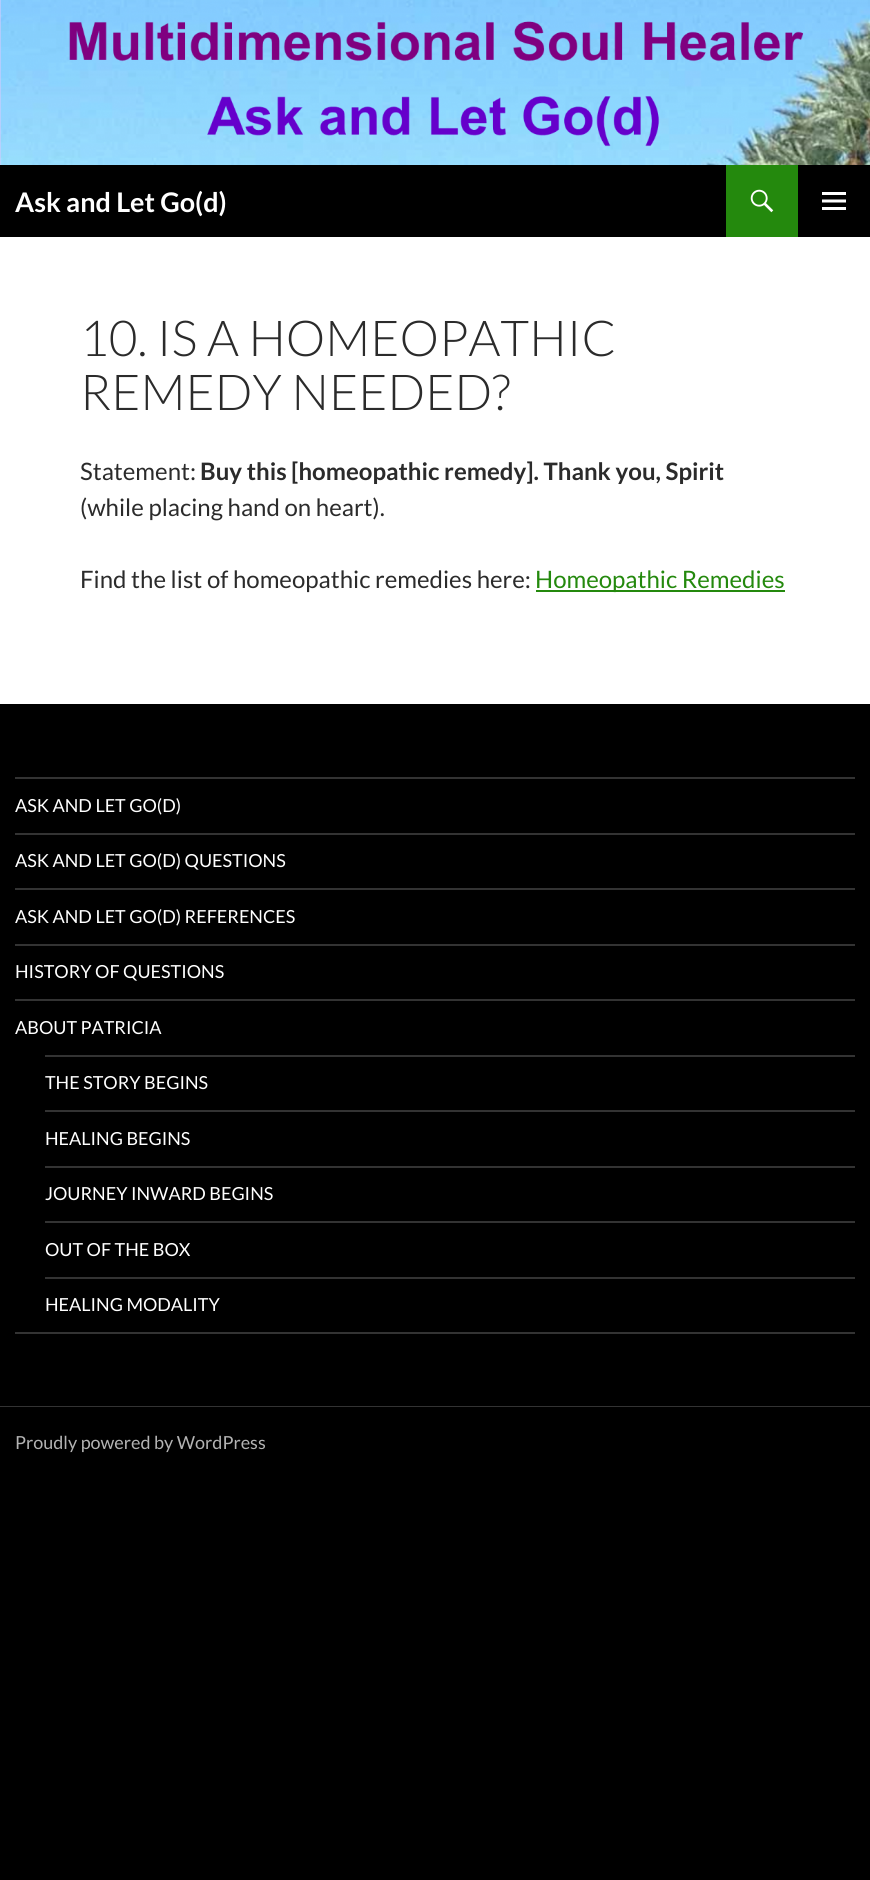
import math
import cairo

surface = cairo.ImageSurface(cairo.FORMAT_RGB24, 870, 1880)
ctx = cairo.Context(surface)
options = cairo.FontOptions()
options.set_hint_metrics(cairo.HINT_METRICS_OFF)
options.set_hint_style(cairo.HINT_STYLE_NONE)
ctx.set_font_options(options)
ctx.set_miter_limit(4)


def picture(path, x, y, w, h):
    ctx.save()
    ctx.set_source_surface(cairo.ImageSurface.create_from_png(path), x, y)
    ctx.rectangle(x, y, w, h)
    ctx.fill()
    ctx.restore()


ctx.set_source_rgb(0, 0, 0)
ctx.paint()
ctx.set_source_rgb(1, 1, 1)
ctx.rectangle(0, 237, 870, 467)
ctx.fill()
picture("img1.png", 0, 0, 870, 165)
ctx.select_font_face("Lato", cairo.FONT_SLANT_NORMAL, cairo.FONT_WEIGHT_BOLD)
ctx.set_font_size(27)
ctx.move_to(15, 212)
ctx.show_text("Ask and Let Go(d)")
ctx.set_source_rgb(0.141, 0.537, 0.051)
ctx.rectangle(726, 165, 72, 72)
ctx.fill()
picture("img2.png", 750, 189, 24, 24)
picture("img3.png", 822, 192, 24, 18)
ctx.select_font_face("Lato Light")
ctx.set_font_size(49.5)
ctx.set_source_rgb(0.169, 0.169, 0.169)
ctx.move_to(80, 356)
ctx.show_text("10. IS A HOMEOPATHIC")
ctx.move_to(80, 410)
ctx.show_text("REMEDY NEEDED?")
ctx.select_font_face("Lato")
ctx.set_font_size(24)
ctx.move_to(80, 480)
ctx.show_text("Statement:")
ctx.select_font_face("Lato", cairo.FONT_SLANT_NORMAL, cairo.FONT_WEIGHT_BOLD)
ctx.move_to(200, 480)
ctx.show_text("Buy this [homeopathic remedy]. Thank you, Spirit")
ctx.select_font_face("Lato")
ctx.move_to(80, 516)
ctx.show_text("(while placing hand on heart).")
ctx.move_to(80, 588)
ctx.show_text("Find the list of homeopathic remedies here:")
ctx.set_source_rgb(0.141, 0.537, 0.051)
ctx.rectangle(536, 590, 249, 2)
ctx.fill()
ctx.move_to(535, 588)
ctx.show_text("Homeopathic Remedies")
ctx.set_source_rgb(0.2, 0.2, 0.2)
ctx.rectangle(0, 1406, 870, 1)
ctx.fill()
ctx.rectangle(15, 1332, 840, 2)
ctx.fill()
ctx.rectangle(15, 777, 840, 2)
ctx.fill()
ctx.set_font_size(18)
ctx.set_source_rgb(1, 1, 1)
ctx.move_to(15, 812)
ctx.show_text("ASK AND LET GO(D)")
ctx.set_source_rgb(0.2, 0.2, 0.2)
ctx.rectangle(15, 833, 840, 2)
ctx.fill()
ctx.set_source_rgb(1, 1, 1)
ctx.move_to(15, 867)
ctx.show_text("ASK AND LET GO(D) QUESTIONS")
ctx.set_source_rgb(0.2, 0.2, 0.2)
ctx.rectangle(15, 888, 840, 2)
ctx.fill()
ctx.set_source_rgb(1, 1, 1)
ctx.move_to(15, 923)
ctx.show_text("ASK AND LET GO(D) REFERENCES")
ctx.set_source_rgb(0.2, 0.2, 0.2)
ctx.rectangle(15, 944, 840, 2)
ctx.fill()
ctx.set_source_rgb(1, 1, 1)
ctx.move_to(15, 978)
ctx.show_text("HISTORY OF QUESTIONS")
ctx.set_source_rgb(0.2, 0.2, 0.2)
ctx.rectangle(15, 999, 840, 2)
ctx.fill()
ctx.set_source_rgb(1, 1, 1)
ctx.move_to(15, 1034)
ctx.show_text("ABOUT PATRICIA")
ctx.set_source_rgb(0.2, 0.2, 0.2)
ctx.rectangle(45, 1055, 810, 2)
ctx.fill()
ctx.set_source_rgb(1, 1, 1)
ctx.move_to(45, 1089)
ctx.show_text("THE STORY BEGINS")
ctx.set_source_rgb(0.2, 0.2, 0.2)
ctx.rectangle(45, 1110, 810, 2)
ctx.fill()
ctx.set_source_rgb(1, 1, 1)
ctx.move_to(45, 1145)
ctx.show_text("HEALING BEGINS")
ctx.set_source_rgb(0.2, 0.2, 0.2)
ctx.rectangle(45, 1166, 810, 2)
ctx.fill()
ctx.set_source_rgb(1, 1, 1)
ctx.move_to(45, 1200)
ctx.show_text("JOURNEY INWARD BEGINS")
ctx.set_source_rgb(0.2, 0.2, 0.2)
ctx.rectangle(45, 1221, 810, 2)
ctx.fill()
ctx.set_source_rgb(1, 1, 1)
ctx.move_to(45, 1256)
ctx.show_text("OUT OF THE BOX")
ctx.set_source_rgb(0.2, 0.2, 0.2)
ctx.rectangle(45, 1277, 810, 2)
ctx.fill()
ctx.set_source_rgb(1, 1, 1)
ctx.move_to(45, 1311)
ctx.show_text("HEALING MODALITY")
ctx.set_source_rgb(0.702, 0.702, 0.702)
ctx.move_to(15, 1449)
ctx.show_text("Proudly powered by WordPress")
surface.write_to_png("page.png")
